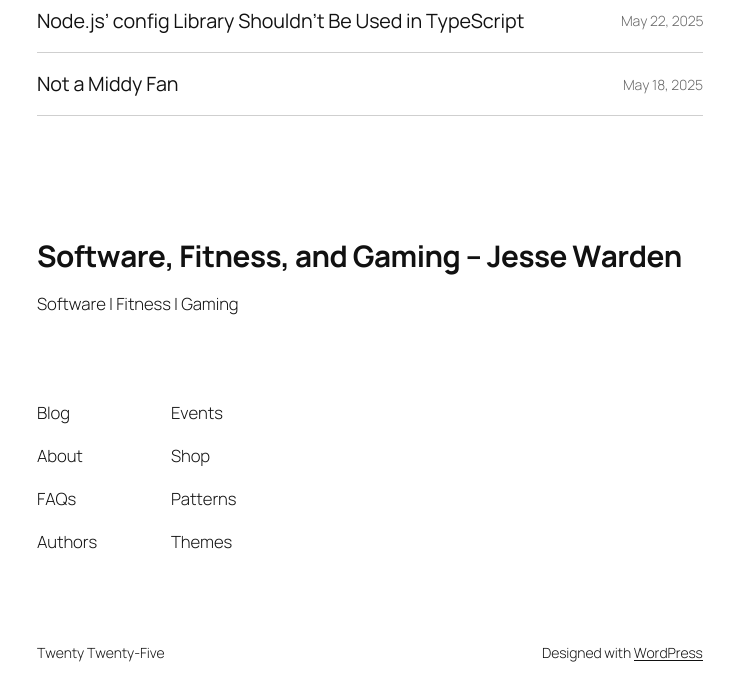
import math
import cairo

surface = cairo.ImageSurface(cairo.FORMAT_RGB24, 740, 700)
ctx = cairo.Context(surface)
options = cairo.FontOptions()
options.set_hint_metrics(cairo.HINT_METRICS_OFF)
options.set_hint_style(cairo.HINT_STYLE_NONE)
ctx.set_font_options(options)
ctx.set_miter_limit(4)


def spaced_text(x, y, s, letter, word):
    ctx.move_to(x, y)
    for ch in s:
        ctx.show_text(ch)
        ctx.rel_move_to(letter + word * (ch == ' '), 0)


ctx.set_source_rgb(1, 1, 1)
ctx.paint()
ctx.set_source_rgb(0.812, 0.812, 0.812)
ctx.rectangle(37, 52, 666, 1)
ctx.fill()
ctx.select_font_face("Manrope")
ctx.set_font_size(19.65)
ctx.set_source_rgb(0.067, 0.067, 0.067)
spaced_text(37, 28, "Node.js’ config Library Shouldn’t Be Used in TypeScript", -0.1, 0)
ctx.select_font_face("Manrope Light")
ctx.set_font_size(14)
ctx.set_source_rgb(0.408, 0.408, 0.408)
spaced_text(621, 26, "May 22, 2025", -0.1, 0)
ctx.set_source_rgb(0.812, 0.812, 0.812)
ctx.rectangle(37, 115, 666, 1)
ctx.fill()
ctx.select_font_face("Manrope")
ctx.set_font_size(19.65)
ctx.set_source_rgb(0.067, 0.067, 0.067)
spaced_text(37, 91, "Not a Middy Fan", -0.1, 0)
ctx.select_font_face("Manrope Light")
ctx.set_font_size(14)
ctx.set_source_rgb(0.408, 0.408, 0.408)
spaced_text(623, 90, "May 18, 2025", -0.1, 0)
ctx.select_font_face("Manrope", cairo.FONT_SLANT_NORMAL, cairo.FONT_WEIGHT_BOLD)
ctx.set_font_size(29.65)
ctx.set_source_rgb(0.067, 0.067, 0.067)
spaced_text(37, 267, "Software, Fitness, and Gaming – Jesse Warden", -0.5, 0)
ctx.select_font_face("Manrope Light")
ctx.set_font_size(16.75)
spaced_text(37, 310, "Software | Fitness | Gaming", -0.1, 0)
spaced_text(37, 419, "Blog", -0.1, 0)
spaced_text(37, 462, "About", -0.1, 0)
spaced_text(37, 505, "FAQs", -0.1, 0)
spaced_text(37, 548, "Authors", -0.1, 0)
spaced_text(171, 419, "Events", -0.1, 0)
spaced_text(171, 462, "Shop", -0.1, 0)
spaced_text(171, 505, "Patterns", -0.1, 0)
spaced_text(171, 548, "Themes", -0.1, 0)
ctx.set_font_size(14)
spaced_text(37, 658, "Twenty Twenty-Five", -0.1, 0)
spaced_text(542, 658, "Designed with WordPress", -0.1, 0)
ctx.rectangle(634, 660, 69, 1)
ctx.fill()
surface.write_to_png("page.png")
